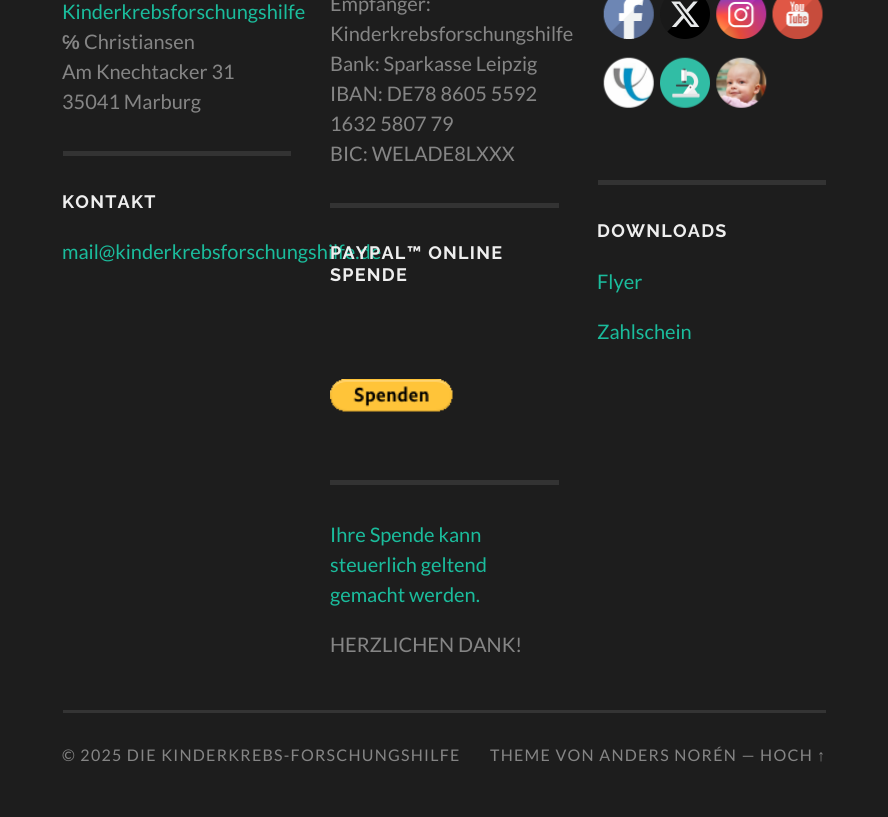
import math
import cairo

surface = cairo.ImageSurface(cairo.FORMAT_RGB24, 888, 817)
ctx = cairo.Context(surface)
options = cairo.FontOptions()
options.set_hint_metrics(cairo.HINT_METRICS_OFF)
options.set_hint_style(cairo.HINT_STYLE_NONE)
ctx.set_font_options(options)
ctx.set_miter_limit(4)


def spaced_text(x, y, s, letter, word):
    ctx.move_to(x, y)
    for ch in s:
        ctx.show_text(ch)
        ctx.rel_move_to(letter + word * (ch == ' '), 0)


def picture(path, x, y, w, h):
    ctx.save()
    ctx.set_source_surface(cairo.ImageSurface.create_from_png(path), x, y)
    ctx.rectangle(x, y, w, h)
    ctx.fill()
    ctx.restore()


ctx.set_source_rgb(0.114, 0.114, 0.114)
ctx.paint()
ctx.set_source_rgb(0.2, 0.2, 0.2)
ctx.rectangle(63, 151, 228, 5)
ctx.fill()
ctx.select_font_face("Lato")
ctx.set_font_size(20)
ctx.set_source_rgb(0.102, 0.737, 0.612)
ctx.move_to(62, 19)
ctx.show_text("Kinderkrebsforschungshilfe")
ctx.select_font_face("Liberation Sans", cairo.FONT_SLANT_NORMAL, cairo.FONT_WEIGHT_BOLD)
ctx.set_source_rgb(0.522, 0.522, 0.522)
ctx.move_to(62, 49)
ctx.show_text("℅")
ctx.select_font_face("Lato")
ctx.move_to(84, 49)
ctx.show_text("Christiansen")
ctx.move_to(62, 79)
ctx.show_text("Am Knechtacker 31")
ctx.move_to(62, 109)
ctx.show_text("35041 Marburg")
ctx.select_font_face("Raleway Thin")
ctx.set_font_size(18)
ctx.set_source_rgb(0.933, 0.933, 0.933)
spaced_text(62, 208, "KONTAKT", 1.25, 0)
ctx.select_font_face("Lato")
ctx.set_font_size(20)
ctx.set_source_rgb(0.102, 0.737, 0.612)
ctx.move_to(62, 259)
ctx.show_text("mail@kinderkrebsforschungshilfe.de")
ctx.set_source_rgb(0.2, 0.2, 0.2)
ctx.rectangle(330, 203, 229, 5)
ctx.fill()
ctx.set_source_rgb(0.522, 0.522, 0.522)
ctx.move_to(330, 11)
ctx.show_text("Empfänger:")
ctx.move_to(330, 41)
ctx.show_text("Kinderkrebsforschungshilfe")
ctx.move_to(330, 71)
ctx.show_text("Bank: Sparkasse Leipzig")
ctx.move_to(330, 101)
ctx.show_text("IBAN: DE78 8605 5592")
ctx.move_to(330, 131)
ctx.show_text("1632 5807 79")
ctx.move_to(330, 161)
ctx.show_text("BIC: WELADE8LXXX")
ctx.set_source_rgb(0.2, 0.2, 0.2)
ctx.rectangle(330, 480, 229, 5)
ctx.fill()
ctx.select_font_face("Raleway Thin")
ctx.set_font_size(18)
ctx.set_source_rgb(0.933, 0.933, 0.933)
spaced_text(330, 259, "PAYPAL™ ONLINE", 1.25, 0)
spaced_text(330, 281, "SPENDE", 1.25, 0)
picture("img1.png", 330, 379, 123, 33)
ctx.select_font_face("Lato")
ctx.set_font_size(20)
ctx.set_source_rgb(0.102, 0.737, 0.612)
ctx.move_to(330, 542)
ctx.show_text("Ihre Spende kann")
ctx.move_to(330, 572)
ctx.show_text("steuerlich geltend")
ctx.move_to(330, 602)
ctx.show_text("gemacht werden.")
ctx.set_source_rgb(0.522, 0.522, 0.522)
ctx.move_to(330, 652)
ctx.show_text("HERZLICHEN DANK!")
ctx.set_source_rgb(0.2, 0.2, 0.2)
ctx.rectangle(598, 180, 228, 5)
ctx.fill()
picture("img2.png", 603, 0, 51, 39)
picture("img3.png", 660, 0, 50, 39)
picture("img4.png", 716, 0, 51, 39)
picture("img5.png", 772, 0, 51, 39)
picture("img6.png", 603, 57, 51, 51)
picture("img7.png", 660, 57, 50, 51)
picture("img8.png", 716, 57, 51, 51)
ctx.select_font_face("Raleway Thin")
ctx.set_font_size(18)
ctx.set_source_rgb(0.933, 0.933, 0.933)
spaced_text(597, 237, "DOWNLOADS", 1.25, 0)
ctx.select_font_face("Lato")
ctx.set_font_size(20)
ctx.set_source_rgb(0.102, 0.737, 0.612)
ctx.move_to(597, 289)
ctx.show_text("Flyer")
ctx.move_to(597, 339)
ctx.show_text("Zahlschein")
ctx.set_source_rgb(0.204, 0.204, 0.204)
ctx.rectangle(63, 710, 763, 3)
ctx.fill()
ctx.set_font_size(16)
ctx.set_source_rgb(0.522, 0.522, 0.522)
spaced_text(62, 761, "© 2025 DIE KINDERKREBS-FORSCHUNGSHILFE", 1.25, 0)
spaced_text(490, 761, "THEME VON ANDERS NORÉN — HOCH", 1.25, 0)
ctx.select_font_face("Liberation Sans")
spaced_text(817, 761, "↑", 1.25, 0)
surface.write_to_png("page.png")
